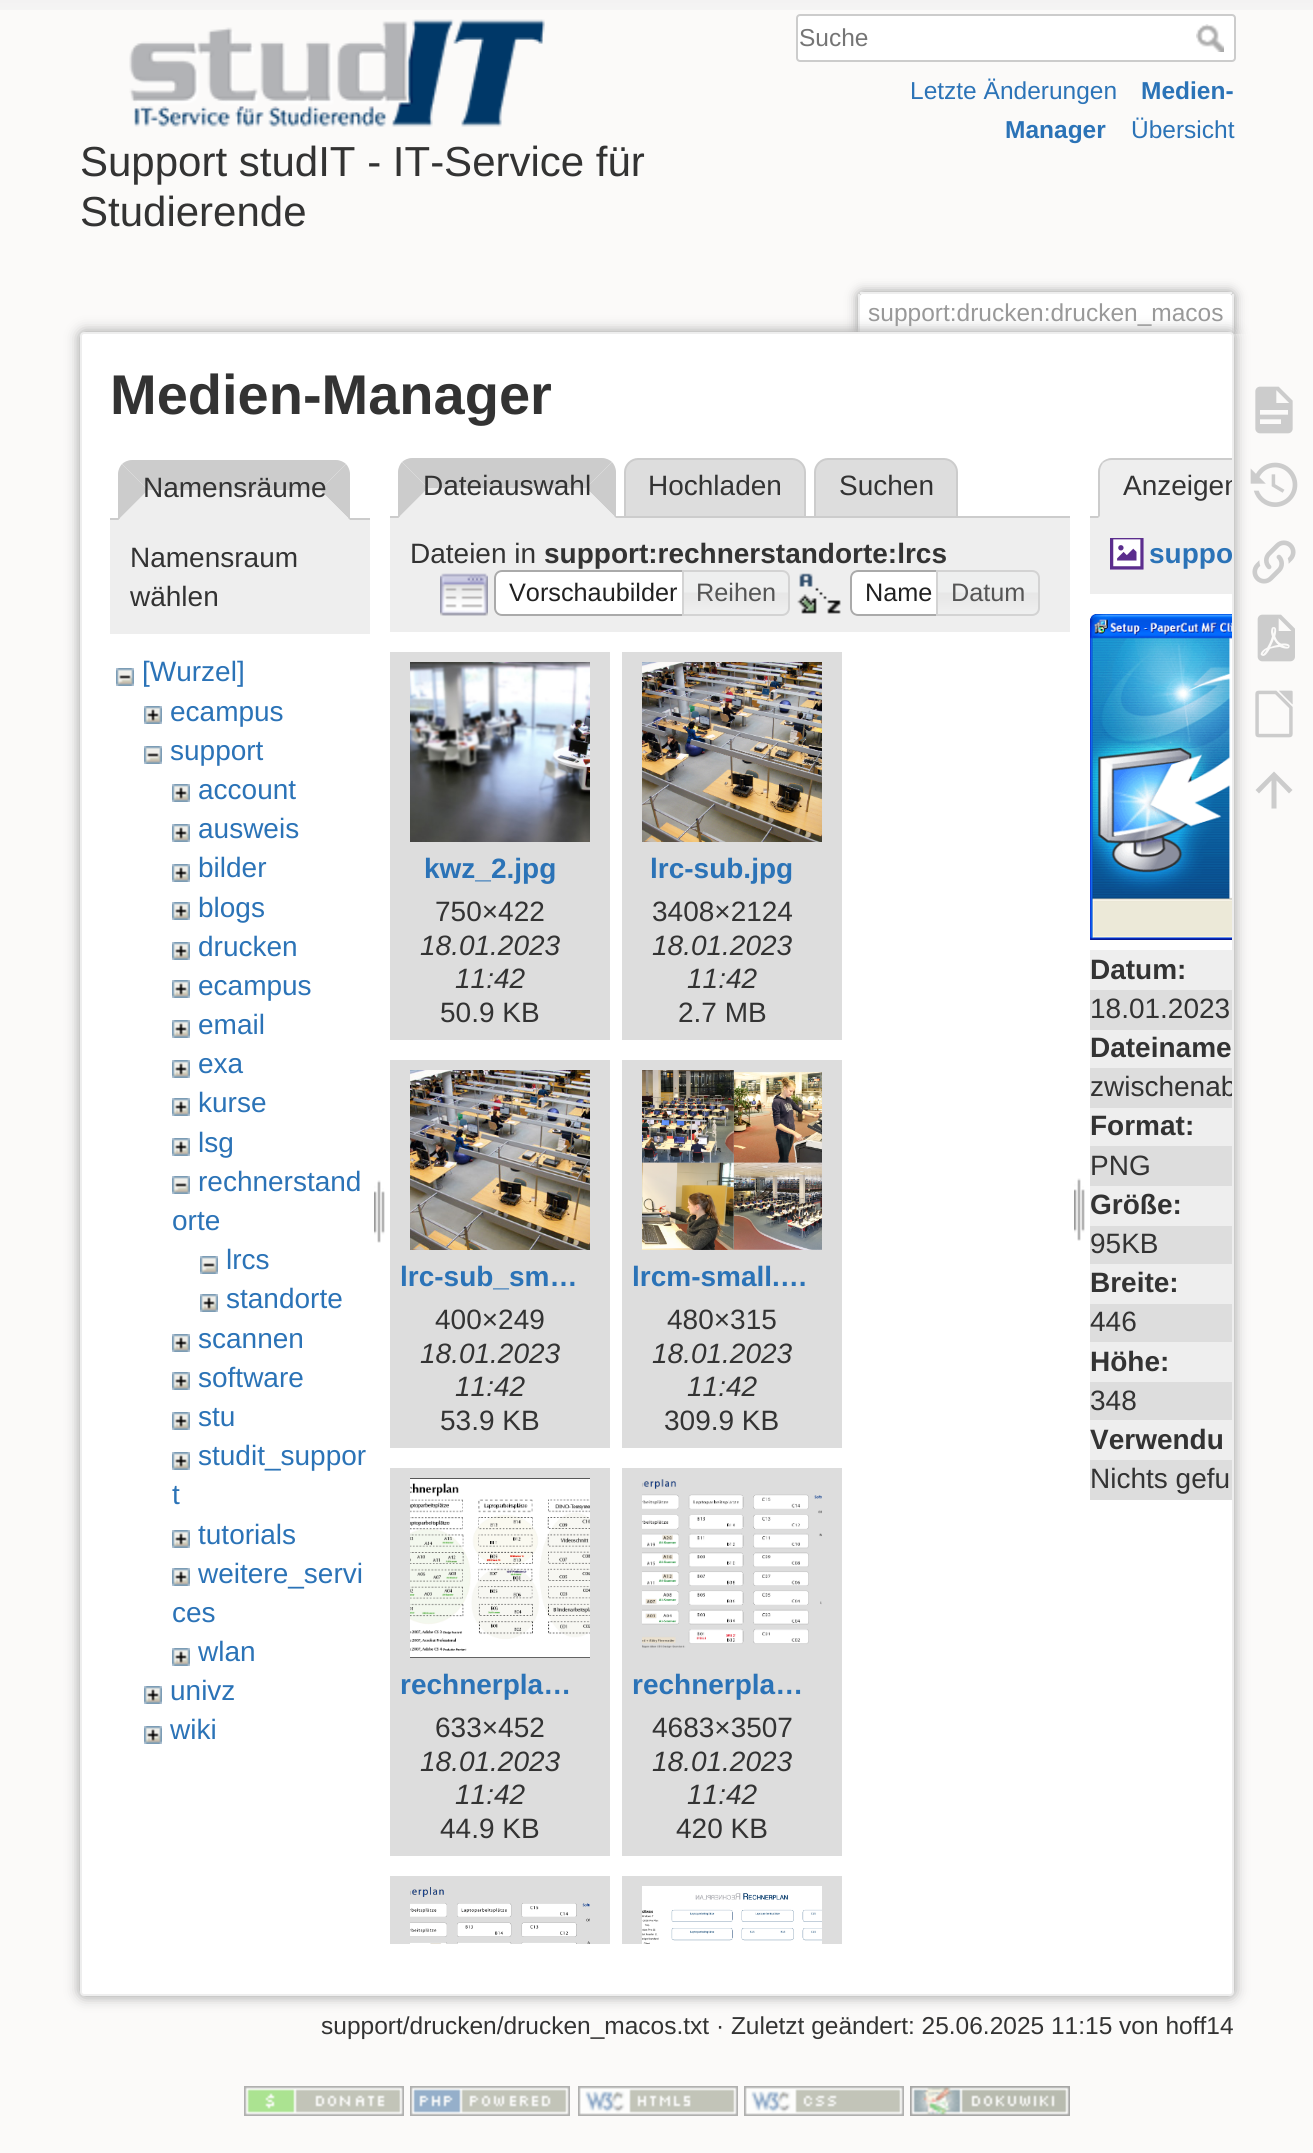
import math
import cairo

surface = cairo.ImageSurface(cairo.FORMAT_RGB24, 1313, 2153)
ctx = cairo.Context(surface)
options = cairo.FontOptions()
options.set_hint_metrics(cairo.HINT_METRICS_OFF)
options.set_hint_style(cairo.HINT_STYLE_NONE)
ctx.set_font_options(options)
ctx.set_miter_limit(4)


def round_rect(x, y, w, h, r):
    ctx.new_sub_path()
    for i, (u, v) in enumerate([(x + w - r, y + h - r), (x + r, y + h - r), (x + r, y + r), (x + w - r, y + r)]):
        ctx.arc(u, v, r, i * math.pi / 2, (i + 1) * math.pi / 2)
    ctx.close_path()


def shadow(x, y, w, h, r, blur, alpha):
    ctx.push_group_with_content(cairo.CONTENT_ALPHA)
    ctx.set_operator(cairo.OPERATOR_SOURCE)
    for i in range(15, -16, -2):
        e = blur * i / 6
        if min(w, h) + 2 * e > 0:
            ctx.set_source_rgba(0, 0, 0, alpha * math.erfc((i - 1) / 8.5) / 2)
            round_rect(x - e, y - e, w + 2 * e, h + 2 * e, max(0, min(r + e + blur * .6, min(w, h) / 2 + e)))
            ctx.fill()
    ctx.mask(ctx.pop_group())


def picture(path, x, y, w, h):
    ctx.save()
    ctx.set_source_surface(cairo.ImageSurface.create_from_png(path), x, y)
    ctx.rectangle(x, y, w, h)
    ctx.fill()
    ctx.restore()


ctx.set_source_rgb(0.984, 0.98, 0.976)
ctx.paint()
picture("img1.png", 0, 0, 1313, 10)
ctx.set_source_rgb(1, 1, 1)
round_rect(797, 15, 438, 46, 3)
ctx.fill_preserve()
ctx.set_source_rgb(0.8, 0.8, 0.8)
ctx.stroke()
ctx.select_font_face("Liberation Sans")
ctx.set_font_size(24.5)
ctx.set_source_rgb(0.459, 0.459, 0.459)
ctx.move_to(799, 46)
ctx.show_text("Suche")
picture("img2.png", 1196, 24, 28, 28)
ctx.set_source_rgb(0.169, 0.451, 0.718)
ctx.move_to(910, 99)
ctx.show_text("Letzte Änderungen")
ctx.select_font_face("Liberation Sans", cairo.FONT_SLANT_NORMAL, cairo.FONT_WEIGHT_BOLD)
ctx.move_to(1141, 99)
ctx.show_text("Medien-")
ctx.move_to(1005, 138)
ctx.show_text("Manager")
ctx.select_font_face("Liberation Sans")
ctx.move_to(1131, 138)
ctx.show_text("Übersicht")
picture("img3.png", 129, 19, 416, 108)
ctx.set_font_size(42)
ctx.set_source_rgb(0.2, 0.2, 0.2)
ctx.move_to(80, 176)
ctx.show_text("Support studIT - IT-Service für")
ctx.move_to(80, 226)
ctx.show_text("Studierende")
ctx.save()
ctx.rectangle(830, 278, 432, 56)
ctx.clip()
ctx.set_source_rgb(0.6, 0.6, 0.6)
shadow(858, 292, 376, 42, 4, 6, 1)
ctx.restore()
ctx.set_source_rgb(1, 1, 1)
ctx.new_path()
ctx.move_to(862, 294)
ctx.line_to(1230, 294)
ctx.curve_to(1231, 294, 1232, 295, 1232, 296)
ctx.line_to(1232, 334)
ctx.line_to(860, 334)
ctx.line_to(860, 296)
ctx.curve_to(860, 295, 861, 294, 862, 294)
ctx.close_path()
ctx.fill()
ctx.set_source_rgb(0.933, 0.933, 0.933)
ctx.rectangle(860, 292, 372, 2)
ctx.fill()
ctx.rectangle(1232, 294, 2, 40)
ctx.fill()
ctx.rectangle(858, 294, 2, 40)
ctx.fill()
ctx.set_font_size(24.5)
ctx.set_source_rgb(0.6, 0.6, 0.6)
ctx.move_to(868, 321)
ctx.show_text("support:drucken:drucken_macos")
ctx.set_source_rgb(0.6, 0.6, 0.6)
shadow(80, 332, 1154, 1664, 4, 7, 1)
ctx.set_source_rgb(1, 1, 1)
round_rect(81, 333, 1152, 1662, 3)
ctx.fill_preserve()
ctx.set_source_rgb(0.933, 0.933, 0.933)
ctx.stroke()
ctx.select_font_face("Liberation Sans", cairo.FONT_SLANT_NORMAL, cairo.FONT_WEIGHT_BOLD)
ctx.set_font_size(56)
ctx.set_source_rgb(0.2, 0.2, 0.2)
ctx.move_to(110, 414)
ctx.show_text("Medien-Manager")
ctx.set_source_rgb(0.8, 0.8, 0.8)
ctx.new_path()
ctx.move_to(132, 460)
ctx.line_to(336, 460)
ctx.curve_to(340, 460, 344, 462, 346, 464)
ctx.line_to(320, 490)
ctx.line_to(148, 490)
ctx.line_to(122, 464)
ctx.curve_to(124, 462, 128, 460, 132, 460)
ctx.close_path()
ctx.fill()
ctx.rectangle(110, 518, 260, 2)
ctx.fill()
ctx.new_path()
ctx.move_to(346, 464)
ctx.line_to(320, 490)
ctx.line_to(350, 520)
ctx.line_to(350, 474)
ctx.curve_to(350, 470, 348, 466, 346, 464)
ctx.close_path()
ctx.fill()
ctx.set_source_rgb(0.933, 0.933, 0.933)
ctx.new_path()
ctx.move_to(350, 520)
ctx.line_to(320, 490)
ctx.line_to(148, 490)
ctx.line_to(118, 520)
ctx.close_path()
ctx.fill()
ctx.set_source_rgb(0.8, 0.8, 0.8)
ctx.new_path()
ctx.move_to(118, 520)
ctx.line_to(118, 474)
ctx.curve_to(118, 470, 120, 466, 122, 464)
ctx.line_to(148, 490)
ctx.close_path()
ctx.fill()
ctx.select_font_face("Liberation Sans")
ctx.set_font_size(28)
ctx.set_source_rgb(0.2, 0.2, 0.2)
ctx.move_to(143, 497)
ctx.show_text("Namensräume")
ctx.set_source_rgb(0.933, 0.933, 0.933)
ctx.rectangle(110, 520, 260, 114)
ctx.fill()
ctx.set_source_rgb(0.2, 0.2, 0.2)
ctx.move_to(130, 567)
ctx.show_text("Namensraum")
ctx.move_to(130, 606)
ctx.show_text("wählen")
picture("img4.png", 116, 668, 18, 18)
ctx.set_source_rgb(0.169, 0.451, 0.718)
ctx.move_to(142, 681)
ctx.show_text("[Wurzel]")
picture("img5.png", 144, 706, 18, 18)
ctx.move_to(170, 721)
ctx.show_text("ecampus")
picture("img4.png", 144, 746, 18, 18)
ctx.move_to(170, 760)
ctx.show_text("support")
picture("img5.png", 172, 784, 18, 18)
ctx.move_to(198, 799)
ctx.show_text("account")
picture("img5.png", 172, 824, 18, 18)
ctx.move_to(198, 838)
ctx.show_text("ausweis")
picture("img5.png", 172, 864, 18, 18)
ctx.move_to(198, 877)
ctx.show_text("bilder")
picture("img5.png", 172, 902, 18, 18)
ctx.move_to(198, 917)
ctx.show_text("blogs")
picture("img5.png", 172, 942, 18, 18)
ctx.move_to(198, 956)
ctx.show_text("drucken")
picture("img5.png", 172, 980, 18, 18)
ctx.move_to(198, 995)
ctx.show_text("ecampus")
picture("img5.png", 172, 1020, 18, 18)
ctx.move_to(198, 1034)
ctx.show_text("email")
picture("img5.png", 172, 1060, 18, 18)
ctx.move_to(198, 1073)
ctx.show_text("exa")
picture("img5.png", 172, 1098, 18, 18)
ctx.move_to(198, 1112)
ctx.show_text("kurse")
picture("img5.png", 172, 1138, 18, 18)
ctx.move_to(198, 1152)
ctx.show_text("lsg")
picture("img4.png", 172, 1176, 18, 18)
ctx.move_to(198, 1191)
ctx.show_text("rechnerstand")
ctx.move_to(172, 1230)
ctx.show_text("orte")
picture("img4.png", 200, 1256, 18, 18)
ctx.move_to(226, 1269)
ctx.show_text("lrcs")
picture("img5.png", 200, 1294, 18, 18)
ctx.move_to(226, 1308)
ctx.show_text("standorte")
picture("img5.png", 172, 1334, 18, 18)
ctx.move_to(198, 1348)
ctx.show_text("scannen")
picture("img5.png", 172, 1372, 18, 18)
ctx.move_to(198, 1387)
ctx.show_text("software")
picture("img5.png", 172, 1412, 18, 18)
ctx.move_to(198, 1426)
ctx.show_text("stu")
picture("img5.png", 172, 1452, 18, 18)
ctx.move_to(198, 1465)
ctx.show_text("studit_suppor")
ctx.move_to(172, 1504)
ctx.show_text("t")
picture("img5.png", 172, 1530, 18, 18)
ctx.move_to(198, 1544)
ctx.show_text("tutorials")
picture("img5.png", 172, 1568, 18, 18)
ctx.move_to(198, 1583)
ctx.show_text("weitere_servi")
ctx.move_to(172, 1622)
ctx.show_text("ces")
picture("img5.png", 172, 1648, 18, 18)
ctx.move_to(198, 1661)
ctx.show_text("wlan")
picture("img5.png", 144, 1686, 18, 18)
ctx.move_to(170, 1700)
ctx.show_text("univz")
picture("img5.png", 144, 1726, 18, 18)
ctx.move_to(170, 1739)
ctx.show_text("wiki")
picture("img6.png", 374, 1180, 11, 63)
ctx.set_source_rgb(0.8, 0.8, 0.8)
ctx.new_path()
ctx.move_to(412, 458)
ctx.line_to(602, 458)
ctx.curve_to(606, 458, 610, 460, 612, 462)
ctx.line_to(586, 488)
ctx.line_to(428, 488)
ctx.line_to(402, 462)
ctx.curve_to(404, 460, 408, 458, 412, 458)
ctx.close_path()
ctx.fill()
ctx.set_source_rgb(0.867, 0.867, 0.867)
ctx.new_path()
ctx.move_to(638, 459)
ctx.line_to(792, 459)
ctx.curve_to(799, 459, 805, 465, 805, 472)
ctx.line_to(805, 517)
ctx.line_to(625, 517)
ctx.line_to(625, 472)
ctx.curve_to(625, 465, 631, 459, 638, 459)
ctx.close_path()
ctx.fill_preserve()
ctx.set_source_rgb(0.8, 0.8, 0.8)
ctx.stroke()
ctx.set_source_rgb(0.867, 0.867, 0.867)
ctx.new_path()
ctx.move_to(828, 459)
ctx.line_to(944, 459)
ctx.curve_to(951, 459, 957, 465, 957, 472)
ctx.line_to(957, 517)
ctx.line_to(815, 517)
ctx.line_to(815, 472)
ctx.curve_to(815, 465, 821, 459, 828, 459)
ctx.close_path()
ctx.fill_preserve()
ctx.set_source_rgb(0.8, 0.8, 0.8)
ctx.stroke()
ctx.rectangle(390, 516, 680, 2)
ctx.fill()
ctx.new_path()
ctx.move_to(612, 462)
ctx.line_to(586, 488)
ctx.line_to(616, 518)
ctx.line_to(616, 472)
ctx.curve_to(616, 468, 614, 464, 612, 462)
ctx.close_path()
ctx.fill()
ctx.set_source_rgb(0.933, 0.933, 0.933)
ctx.new_path()
ctx.move_to(616, 518)
ctx.line_to(586, 488)
ctx.line_to(428, 488)
ctx.line_to(398, 518)
ctx.close_path()
ctx.fill()
ctx.set_source_rgb(0.8, 0.8, 0.8)
ctx.new_path()
ctx.move_to(398, 518)
ctx.line_to(398, 472)
ctx.curve_to(398, 468, 400, 464, 402, 462)
ctx.line_to(428, 488)
ctx.close_path()
ctx.fill()
ctx.set_source_rgb(0.2, 0.2, 0.2)
ctx.move_to(423, 495)
ctx.show_text("Dateiauswahl")
ctx.move_to(648, 495)
ctx.show_text("Hochladen")
ctx.move_to(839, 495)
ctx.show_text("Suchen")
ctx.set_source_rgb(0.933, 0.933, 0.933)
ctx.rectangle(390, 518, 680, 114)
ctx.fill()
ctx.set_source_rgb(0.2, 0.2, 0.2)
ctx.move_to(410, 563)
ctx.show_text("Dateien in")
ctx.select_font_face("Liberation Sans", cairo.FONT_SLANT_NORMAL, cairo.FONT_WEIGHT_BOLD)
ctx.move_to(544, 563)
ctx.show_text("support:rechnerstandorte:lrcs")
picture("img7.png", 440, 573, 48, 43)
ctx.set_source_rgb(1, 1, 1)
ctx.new_path()
ctx.move_to(502, 570)
ctx.line_to(692, 570)
ctx.line_to(692, 616)
ctx.line_to(502, 616)
ctx.curve_to(497.5, 616, 494, 612.5, 494, 608)
ctx.line_to(494, 578)
ctx.curve_to(494, 573.5, 497.5, 570, 502, 570)
ctx.close_path()
ctx.fill()
picture("img8.png", 494, 570, 6, 46)
ctx.new_path()
ctx.move_to(502, 571)
ctx.line_to(691, 571)
ctx.line_to(691, 615)
ctx.line_to(502, 615)
ctx.curve_to(498, 615, 495, 612, 495, 608)
ctx.line_to(495, 578)
ctx.curve_to(495, 574, 498, 571, 502, 571)
ctx.close_path()
ctx.set_source_rgb(0.667, 0.667, 0.667)
ctx.stroke()
ctx.select_font_face("Liberation Sans")
ctx.set_font_size(25.25)
ctx.set_source_rgb(0.129, 0.129, 0.129)
ctx.move_to(509, 601)
ctx.show_text("Vorschaubilder")
picture("img9.png", 684, 570, 106, 46)
ctx.new_path()
ctx.move_to(683, 571)
ctx.line_to(782, 571)
ctx.curve_to(786, 571, 789, 574, 789, 578)
ctx.line_to(789, 608)
ctx.curve_to(789, 612, 786, 615, 782, 615)
ctx.line_to(683, 615)
ctx.close_path()
ctx.set_source_rgb(0.827, 0.827, 0.827)
ctx.stroke()
ctx.set_source_rgb(0.333, 0.333, 0.333)
ctx.move_to(696, 601)
ctx.show_text("Reihen")
picture("img10.png", 797, 573, 44, 41)
ctx.set_source_rgb(1, 1, 1)
ctx.new_path()
ctx.move_to(858, 570)
ctx.line_to(946, 570)
ctx.line_to(946, 616)
ctx.line_to(858, 616)
ctx.curve_to(853.5, 616, 850, 612.5, 850, 608)
ctx.line_to(850, 578)
ctx.curve_to(850, 573.5, 853.5, 570, 858, 570)
ctx.close_path()
ctx.fill()
picture("img8.png", 850, 570, 6, 46)
ctx.new_path()
ctx.move_to(858, 571)
ctx.line_to(945, 571)
ctx.line_to(945, 615)
ctx.line_to(858, 615)
ctx.curve_to(854, 615, 851, 612, 851, 608)
ctx.line_to(851, 578)
ctx.curve_to(851, 574, 854, 571, 858, 571)
ctx.close_path()
ctx.set_source_rgb(0.667, 0.667, 0.667)
ctx.stroke()
ctx.set_source_rgb(0.129, 0.129, 0.129)
ctx.move_to(865, 601)
ctx.show_text("Name")
picture("img11.png", 938, 570, 102, 46)
ctx.new_path()
ctx.move_to(937, 571)
ctx.line_to(1032, 571)
ctx.curve_to(1036, 571, 1039, 574, 1039, 578)
ctx.line_to(1039, 608)
ctx.curve_to(1039, 612, 1036, 615, 1032, 615)
ctx.line_to(937, 615)
ctx.close_path()
ctx.set_source_rgb(0.827, 0.827, 0.827)
ctx.stroke()
ctx.set_source_rgb(0.333, 0.333, 0.333)
ctx.move_to(951, 601)
ctx.show_text("Datum")
ctx.set_source_rgb(0.867, 0.867, 0.867)
ctx.rectangle(390, 652, 220, 388)
ctx.fill()
picture("img12.png", 410, 662, 180, 180)
ctx.select_font_face("Liberation Sans", cairo.FONT_SLANT_NORMAL, cairo.FONT_WEIGHT_BOLD)
ctx.set_font_size(28)
ctx.set_source_rgb(0.169, 0.451, 0.718)
ctx.move_to(424, 878)
ctx.show_text("kwz_2.jpg")
ctx.select_font_face("Liberation Sans")
ctx.set_source_rgb(0.2, 0.2, 0.2)
ctx.move_to(435, 921)
ctx.show_text("750×422")
ctx.select_font_face("Liberation Sans", cairo.FONT_SLANT_ITALIC)
ctx.move_to(420, 955)
ctx.show_text("18.01.2023")
ctx.move_to(455, 988)
ctx.show_text("11:42")
ctx.select_font_face("Liberation Sans")
ctx.move_to(440, 1022)
ctx.show_text("50.9 KB")
ctx.set_source_rgb(0.867, 0.867, 0.867)
ctx.rectangle(622, 652, 220, 388)
ctx.fill()
picture("img13.png", 642, 662, 180, 180)
ctx.select_font_face("Liberation Sans", cairo.FONT_SLANT_NORMAL, cairo.FONT_WEIGHT_BOLD)
ctx.set_source_rgb(0.169, 0.451, 0.718)
ctx.move_to(650, 878)
ctx.show_text("lrc-sub.jpg")
ctx.select_font_face("Liberation Sans")
ctx.set_source_rgb(0.2, 0.2, 0.2)
ctx.move_to(652, 921)
ctx.show_text("3408×2124")
ctx.select_font_face("Liberation Sans", cairo.FONT_SLANT_ITALIC)
ctx.move_to(652, 955)
ctx.show_text("18.01.2023")
ctx.move_to(687, 988)
ctx.show_text("11:42")
ctx.select_font_face("Liberation Sans")
ctx.move_to(678, 1022)
ctx.show_text("2.7 MB")
ctx.set_source_rgb(0.867, 0.867, 0.867)
ctx.rectangle(390, 1060, 220, 388)
ctx.fill()
picture("img14.png", 410, 1070, 180, 180)
ctx.select_font_face("Liberation Sans", cairo.FONT_SLANT_NORMAL, cairo.FONT_WEIGHT_BOLD)
ctx.set_source_rgb(0.169, 0.451, 0.718)
ctx.move_to(400, 1286)
ctx.show_text("lrc-sub_sm…")
ctx.select_font_face("Liberation Sans")
ctx.set_source_rgb(0.2, 0.2, 0.2)
ctx.move_to(435, 1329)
ctx.show_text("400×249")
ctx.select_font_face("Liberation Sans", cairo.FONT_SLANT_ITALIC)
ctx.move_to(420, 1363)
ctx.show_text("18.01.2023")
ctx.move_to(455, 1396)
ctx.show_text("11:42")
ctx.select_font_face("Liberation Sans")
ctx.move_to(440, 1430)
ctx.show_text("53.9 KB")
ctx.set_source_rgb(0.867, 0.867, 0.867)
ctx.rectangle(622, 1060, 220, 388)
ctx.fill()
picture("img15.png", 642, 1070, 180, 180)
ctx.select_font_face("Liberation Sans", cairo.FONT_SLANT_NORMAL, cairo.FONT_WEIGHT_BOLD)
ctx.set_source_rgb(0.169, 0.451, 0.718)
ctx.move_to(632, 1286)
ctx.show_text("lrcm-small.…")
ctx.select_font_face("Liberation Sans")
ctx.set_source_rgb(0.2, 0.2, 0.2)
ctx.move_to(667, 1329)
ctx.show_text("480×315")
ctx.select_font_face("Liberation Sans", cairo.FONT_SLANT_ITALIC)
ctx.move_to(652, 1363)
ctx.show_text("18.01.2023")
ctx.move_to(687, 1396)
ctx.show_text("11:42")
ctx.select_font_face("Liberation Sans")
ctx.move_to(664, 1430)
ctx.show_text("309.9 KB")
ctx.set_source_rgb(0.867, 0.867, 0.867)
ctx.rectangle(390, 1468, 220, 388)
ctx.fill()
picture("img16.png", 410, 1478, 180, 180)
ctx.select_font_face("Liberation Sans", cairo.FONT_SLANT_NORMAL, cairo.FONT_WEIGHT_BOLD)
ctx.set_source_rgb(0.169, 0.451, 0.718)
ctx.move_to(400, 1694)
ctx.show_text("rechnerpla…")
ctx.select_font_face("Liberation Sans")
ctx.set_source_rgb(0.2, 0.2, 0.2)
ctx.move_to(435, 1737)
ctx.show_text("633×452")
ctx.select_font_face("Liberation Sans", cairo.FONT_SLANT_ITALIC)
ctx.move_to(420, 1771)
ctx.show_text("18.01.2023")
ctx.move_to(455, 1804)
ctx.show_text("11:42")
ctx.select_font_face("Liberation Sans")
ctx.move_to(440, 1838)
ctx.show_text("44.9 KB")
ctx.set_source_rgb(0.867, 0.867, 0.867)
ctx.rectangle(622, 1468, 220, 388)
ctx.fill()
picture("img17.png", 642, 1479, 180, 169)
ctx.select_font_face("Liberation Sans", cairo.FONT_SLANT_NORMAL, cairo.FONT_WEIGHT_BOLD)
ctx.set_source_rgb(0.169, 0.451, 0.718)
ctx.move_to(632, 1694)
ctx.show_text("rechnerpla…")
ctx.select_font_face("Liberation Sans")
ctx.set_source_rgb(0.2, 0.2, 0.2)
ctx.move_to(652, 1737)
ctx.show_text("4683×3507")
ctx.select_font_face("Liberation Sans", cairo.FONT_SLANT_ITALIC)
ctx.move_to(652, 1771)
ctx.show_text("18.01.2023")
ctx.move_to(687, 1804)
ctx.show_text("11:42")
ctx.select_font_face("Liberation Sans")
ctx.move_to(676, 1838)
ctx.show_text("420 KB")
ctx.set_source_rgb(0.867, 0.867, 0.867)
ctx.rectangle(390, 1876, 220, 68)
ctx.fill()
picture("img18.png", 410, 1887, 180, 57)
ctx.rectangle(622, 1876, 220, 68)
ctx.fill()
picture("img19.png", 642, 1886, 180, 58)
picture("img6.png", 1074, 1178, 11, 63)
ctx.set_source_rgb(0.933, 0.933, 0.933)
ctx.new_path()
ctx.move_to(1112, 458)
ctx.line_to(1232, 458)
ctx.line_to(1232, 518)
ctx.line_to(1098, 518)
ctx.line_to(1098, 472)
ctx.curve_to(1098, 464.5, 1104.5, 458, 1112, 458)
ctx.close_path()
ctx.fill()
ctx.set_source_rgb(0.8, 0.8, 0.8)
ctx.new_path()
ctx.move_to(1112, 458)
ctx.line_to(1232, 458)
ctx.line_to(1232, 460)
ctx.line_to(1112, 460)
ctx.curve_to(1108, 460, 1106, 461, 1103, 463)
ctx.line_to(1102, 462)
ctx.curve_to(1104, 460, 1108, 458, 1112, 458)
ctx.close_path()
ctx.fill()
ctx.new_path()
ctx.move_to(1098, 518)
ctx.line_to(1100, 516)
ctx.line_to(1100, 472)
ctx.curve_to(1100, 468, 1101, 466, 1103, 463)
ctx.line_to(1102, 462)
ctx.curve_to(1100, 464, 1098, 468, 1098, 472)
ctx.close_path()
ctx.fill()
ctx.save()
round_rect(82, 334, 1150, 1660, 2)
ctx.clip()
ctx.set_source_rgb(0.2, 0.2, 0.2)
ctx.move_to(1123, 495)
ctx.show_text("Anzeigen")
ctx.restore()
ctx.rectangle(1090, 516, 8, 2)
ctx.fill()
ctx.set_source_rgb(0.933, 0.933, 0.933)
ctx.rectangle(1090, 518, 142, 76)
ctx.fill()
picture("img20.png", 1110, 538, 34, 32)
ctx.select_font_face("Liberation Sans", cairo.FONT_SLANT_NORMAL, cairo.FONT_WEIGHT_BOLD)
ctx.set_source_rgb(0.169, 0.451, 0.718)
ctx.move_to(1149, 563)
ctx.show_text("suppo")
picture("img21.png", 1090, 614, 142, 326)
ctx.set_source_rgb(0.933, 0.933, 0.933)
ctx.rectangle(1090, 950, 142, 40)
ctx.fill()
ctx.set_source_rgb(0.2, 0.2, 0.2)
ctx.move_to(1090, 979)
ctx.show_text("Datum:")
ctx.set_source_rgb(0.867, 0.867, 0.867)
ctx.rectangle(1090, 990, 142, 40)
ctx.fill()
ctx.select_font_face("Liberation Sans")
ctx.set_source_rgb(0.2, 0.2, 0.2)
ctx.move_to(1090, 1018)
ctx.show_text("18.01.2023")
ctx.set_source_rgb(0.933, 0.933, 0.933)
ctx.rectangle(1090, 1030, 142, 38)
ctx.fill()
ctx.select_font_face("Liberation Sans", cairo.FONT_SLANT_NORMAL, cairo.FONT_WEIGHT_BOLD)
ctx.set_source_rgb(0.2, 0.2, 0.2)
ctx.move_to(1090, 1057)
ctx.show_text("Dateiname")
ctx.set_source_rgb(0.867, 0.867, 0.867)
ctx.rectangle(1090, 1068, 142, 40)
ctx.fill()
ctx.save()
round_rect(82, 334, 1150, 1660, 2)
ctx.clip()
ctx.select_font_face("Liberation Sans")
ctx.set_source_rgb(0.2, 0.2, 0.2)
ctx.move_to(1090, 1096)
ctx.show_text("zwischenab")
ctx.restore()
ctx.set_source_rgb(0.933, 0.933, 0.933)
ctx.rectangle(1090, 1108, 142, 38)
ctx.fill()
ctx.set_source_rgb(0.2, 0.2, 0.2)
ctx.move_to(1090, 1135)
ctx.show_text("Format:")
ctx.set_source_rgb(0.867, 0.867, 0.867)
ctx.rectangle(1090, 1146, 142, 40)
ctx.fill()
ctx.select_font_face("Liberation Sans")
ctx.set_source_rgb(0.2, 0.2, 0.2)
ctx.move_to(1090, 1175)
ctx.show_text("PNG")
ctx.set_source_rgb(0.933, 0.933, 0.933)
ctx.rectangle(1090, 1186, 142, 40)
ctx.fill()
ctx.select_font_face("Liberation Sans", cairo.FONT_SLANT_NORMAL, cairo.FONT_WEIGHT_BOLD)
ctx.set_source_rgb(0.2, 0.2, 0.2)
ctx.move_to(1090, 1214)
ctx.show_text("Größe:")
ctx.set_source_rgb(0.867, 0.867, 0.867)
ctx.rectangle(1090, 1226, 142, 38)
ctx.fill()
ctx.select_font_face("Liberation Sans")
ctx.set_source_rgb(0.2, 0.2, 0.2)
ctx.move_to(1090, 1253)
ctx.show_text("95KB")
ctx.set_source_rgb(0.933, 0.933, 0.933)
ctx.rectangle(1090, 1264, 142, 40)
ctx.fill()
ctx.select_font_face("Liberation Sans", cairo.FONT_SLANT_NORMAL, cairo.FONT_WEIGHT_BOLD)
ctx.set_source_rgb(0.2, 0.2, 0.2)
ctx.move_to(1090, 1292)
ctx.show_text("Breite:")
ctx.set_source_rgb(0.867, 0.867, 0.867)
ctx.rectangle(1090, 1304, 142, 38)
ctx.fill()
ctx.select_font_face("Liberation Sans")
ctx.set_source_rgb(0.2, 0.2, 0.2)
ctx.move_to(1090, 1331)
ctx.show_text("446")
ctx.set_source_rgb(0.933, 0.933, 0.933)
ctx.rectangle(1090, 1342, 142, 40)
ctx.fill()
ctx.select_font_face("Liberation Sans", cairo.FONT_SLANT_NORMAL, cairo.FONT_WEIGHT_BOLD)
ctx.set_source_rgb(0.2, 0.2, 0.2)
ctx.move_to(1090, 1371)
ctx.show_text("Höhe:")
ctx.set_source_rgb(0.867, 0.867, 0.867)
ctx.rectangle(1090, 1382, 142, 38)
ctx.fill()
ctx.select_font_face("Liberation Sans")
ctx.set_source_rgb(0.2, 0.2, 0.2)
ctx.move_to(1090, 1410)
ctx.show_text("348")
ctx.set_source_rgb(0.933, 0.933, 0.933)
ctx.rectangle(1090, 1420, 142, 40)
ctx.fill()
ctx.select_font_face("Liberation Sans", cairo.FONT_SLANT_NORMAL, cairo.FONT_WEIGHT_BOLD)
ctx.set_source_rgb(0.2, 0.2, 0.2)
ctx.move_to(1090, 1449)
ctx.show_text("Verwendu")
ctx.set_source_rgb(0.867, 0.867, 0.867)
ctx.rectangle(1090, 1460, 142, 40)
ctx.fill()
ctx.select_font_face("Liberation Sans")
ctx.set_source_rgb(0.2, 0.2, 0.2)
ctx.move_to(1090, 1488)
ctx.show_text("Nichts gefu")
ctx.set_font_size(24.5)
ctx.move_to(321, 2034)
ctx.show_text("support/drucken/drucken_macos.txt · Zuletzt geändert: 25.06.2025 11:15 von hoff14")
picture("img22.png", 1255, 386, 38, 48)
picture("img23.png", 1250, 462, 48, 45)
picture("img24.png", 1252, 540, 44, 44)
picture("img25.png", 1257, 614, 38, 48)
picture("img26.png", 1255, 690, 38, 48)
ctx.set_source_rgb(0.8, 0.8, 0.8)
ctx.new_path()
ctx.move_to(1276.5, 808.5)
ctx.line_to(1271.5, 808.5)
ctx.line_to(1271.5, 780.5)
ctx.line_to(1259, 793.5)
ctx.line_to(1255.5, 790)
ctx.line_to(1274, 771.5)
ctx.line_to(1292.5, 790)
ctx.line_to(1289, 793.5)
ctx.line_to(1276.5, 780.5)
ctx.close_path()
ctx.fill()
picture("img27.png", 244, 2086, 160, 30)
picture("img28.png", 410, 2086, 160, 30)
picture("img29.png", 578, 2086, 160, 30)
picture("img30.png", 744, 2086, 160, 30)
picture("img31.png", 910, 2086, 160, 30)
surface.write_to_png("page.png")
